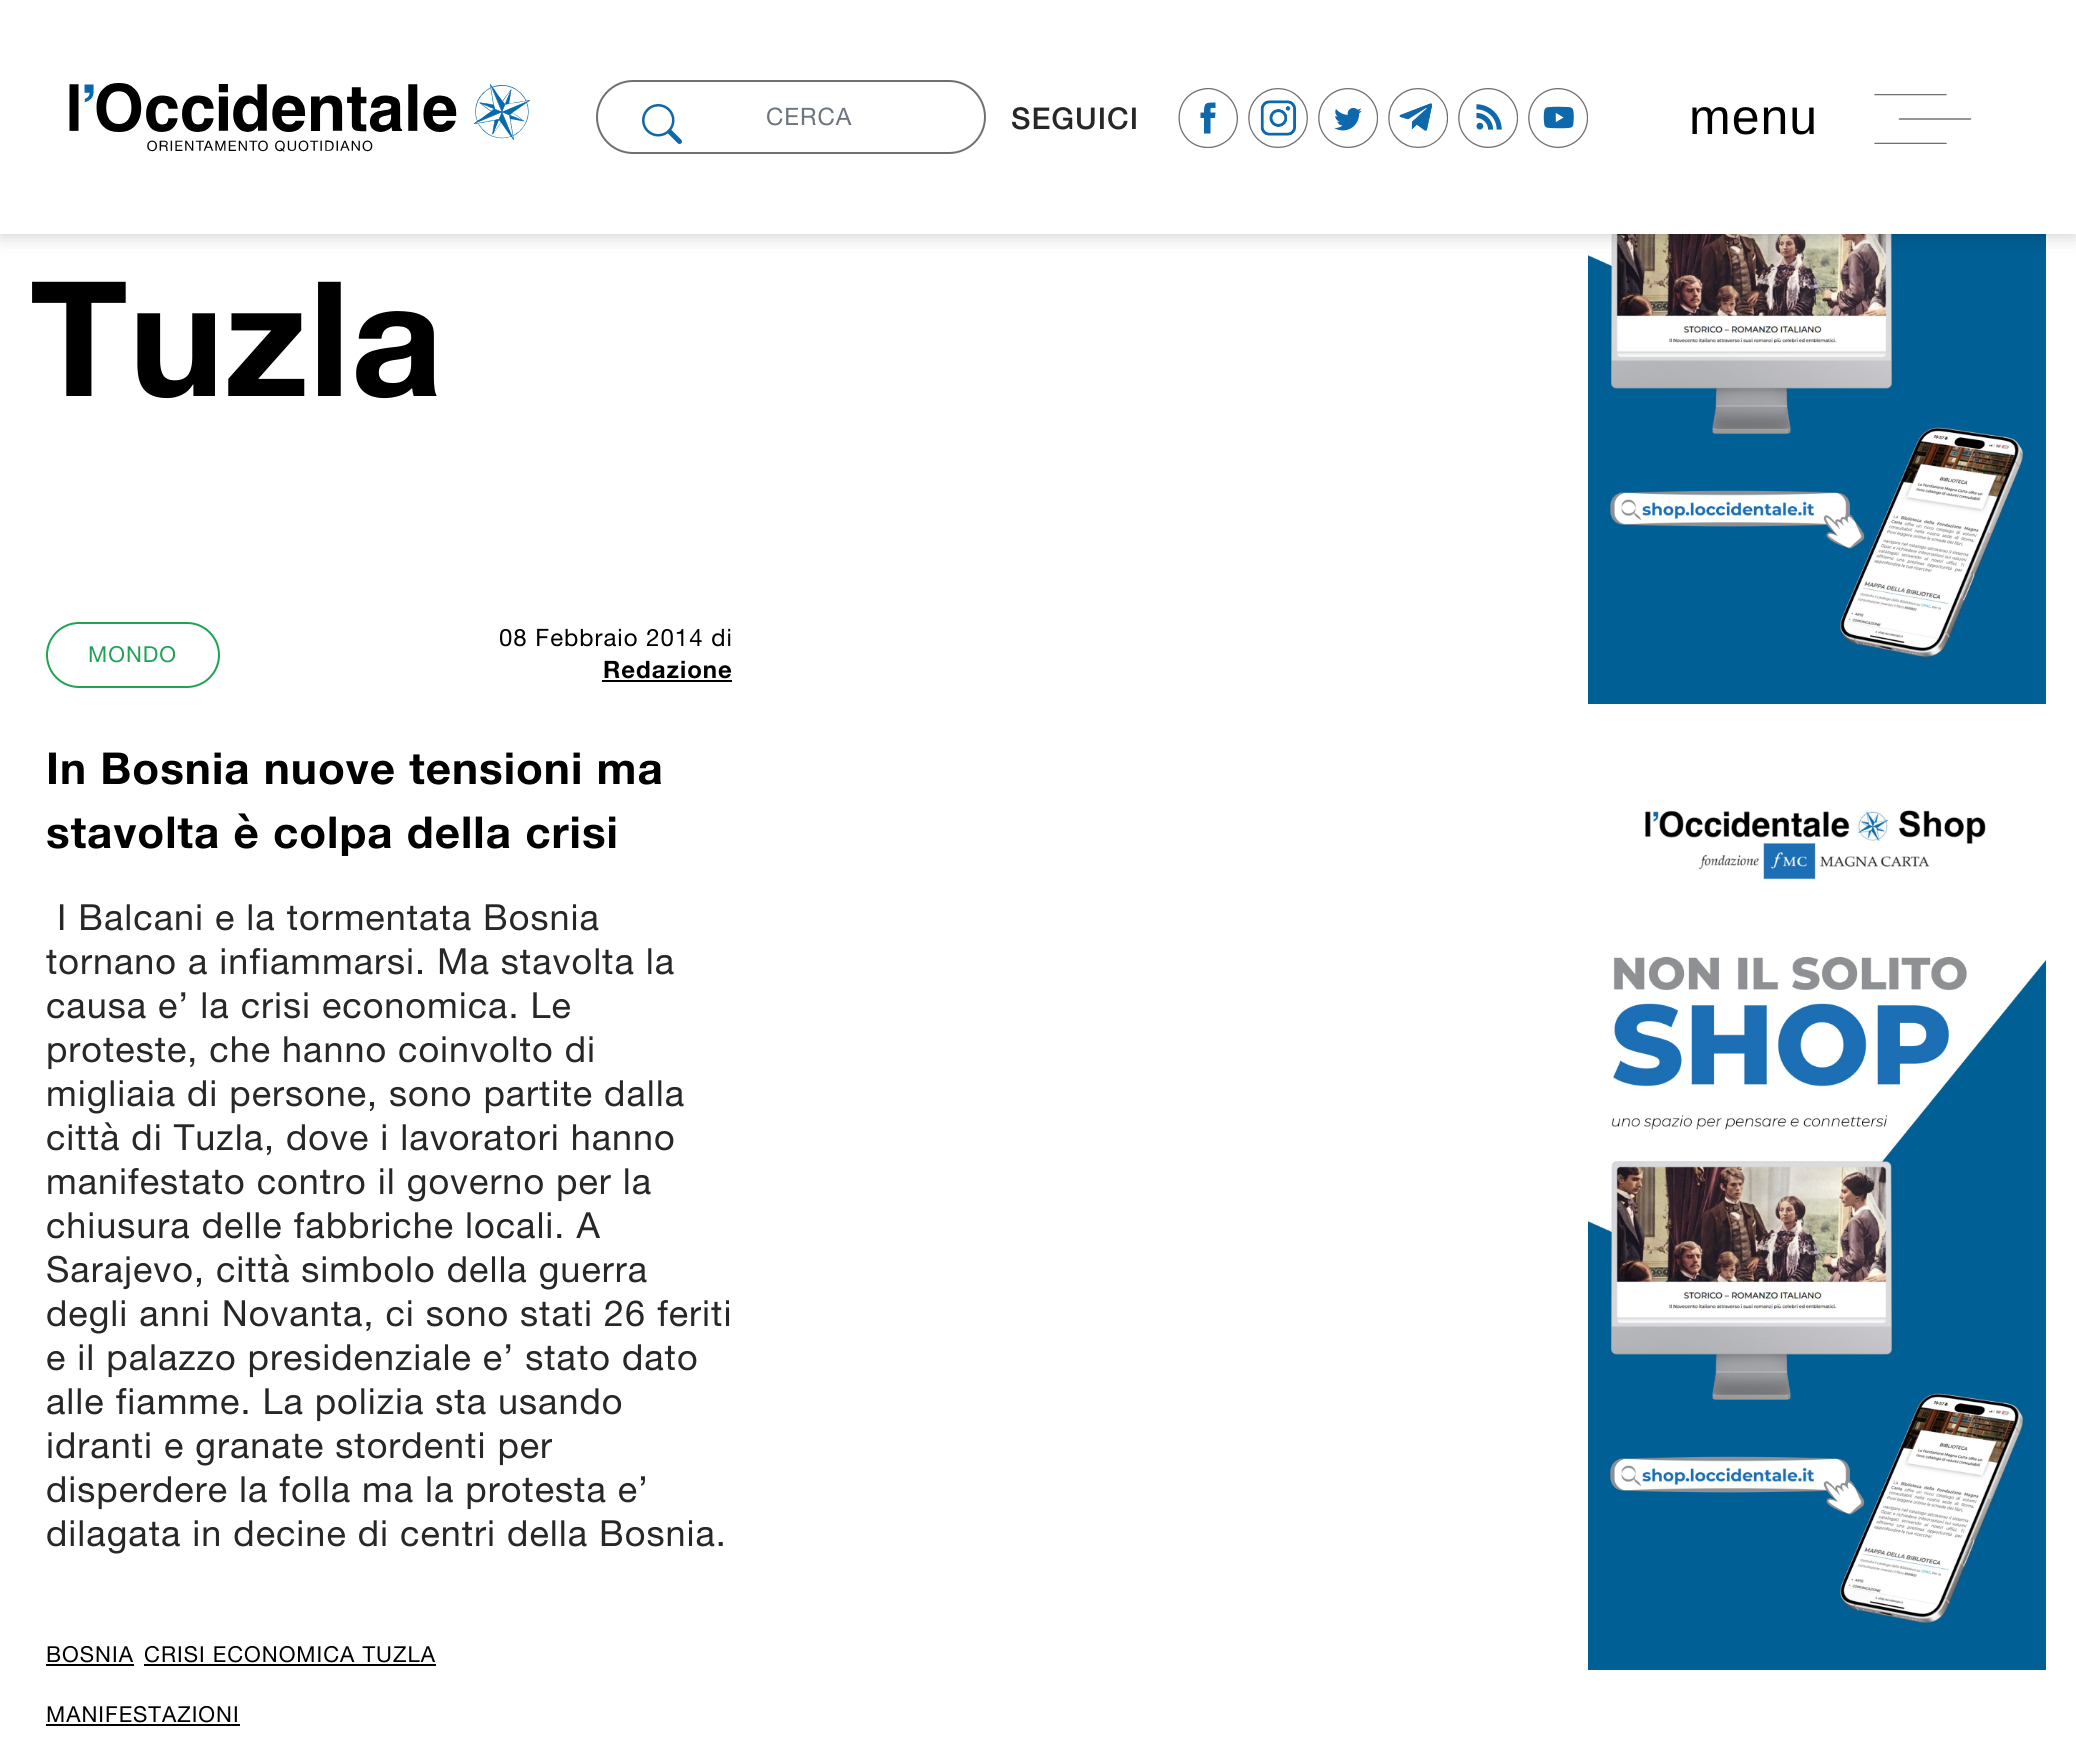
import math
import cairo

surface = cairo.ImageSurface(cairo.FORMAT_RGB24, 2076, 1754)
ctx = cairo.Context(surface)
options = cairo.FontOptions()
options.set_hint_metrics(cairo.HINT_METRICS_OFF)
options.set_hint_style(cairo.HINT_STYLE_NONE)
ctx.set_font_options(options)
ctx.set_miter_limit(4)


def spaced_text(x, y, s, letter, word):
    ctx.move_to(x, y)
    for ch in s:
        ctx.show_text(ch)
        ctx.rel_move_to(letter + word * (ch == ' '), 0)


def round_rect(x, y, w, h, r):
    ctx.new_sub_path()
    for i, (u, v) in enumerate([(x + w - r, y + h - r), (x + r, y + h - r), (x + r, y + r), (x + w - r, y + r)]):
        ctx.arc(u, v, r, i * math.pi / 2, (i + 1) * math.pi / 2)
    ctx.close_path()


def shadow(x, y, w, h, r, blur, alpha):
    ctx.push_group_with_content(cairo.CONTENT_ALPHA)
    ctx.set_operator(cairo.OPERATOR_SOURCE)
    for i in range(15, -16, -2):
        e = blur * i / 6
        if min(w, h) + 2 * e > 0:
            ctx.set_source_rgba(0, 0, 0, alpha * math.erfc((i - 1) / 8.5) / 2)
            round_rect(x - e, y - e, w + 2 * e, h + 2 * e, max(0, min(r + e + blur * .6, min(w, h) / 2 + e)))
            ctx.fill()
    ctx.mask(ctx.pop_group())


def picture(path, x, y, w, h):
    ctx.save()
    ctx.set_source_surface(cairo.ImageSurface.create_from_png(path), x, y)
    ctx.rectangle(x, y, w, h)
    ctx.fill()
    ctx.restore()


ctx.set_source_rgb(1, 1, 1)
ctx.paint()
picture("img8.png", 1588, 234, 458, 470)
ctx.set_source_rgb(0, 0, 0)
shadow(0, 0, 2076, 234, 0, 10, 0.22)
ctx.set_source_rgb(1, 1, 1)
ctx.rectangle(0, 0, 2076, 234)
ctx.fill()
picture("img1.png", 69, 83, 462, 69)
round_rect(597, 81, 388, 72, 36)
ctx.set_source_rgb(0.439, 0.439, 0.439)
ctx.stroke()
picture("img2.png", 642, 104, 40, 40)
ctx.select_font_face("Helvetica Neue")
ctx.set_font_size(24)
ctx.set_source_rgb(0.424, 0.459, 0.49)
spaced_text(766, 125, "CERCA", 1, 0)
ctx.select_font_face("Helvetica Neue Medium")
ctx.set_font_size(30)
ctx.set_source_rgb(0.153, 0.153, 0.153)
spaced_text(1011, 129, "SEGUICI", 1, 0)
ctx.save()
ctx.rectangle(1178, 88, 60, 60)
ctx.clip()
ctx.new_path()
ctx.move_to(1208, 147.5)
ctx.curve_to(1171, 147, 1168, 91, 1208, 88.5)
ctx.curve_to(1211.5, 88.5, 1216, 89.5, 1219, 91)
ctx.curve_to(1238.5, 99, 1243.5, 124, 1229, 139)
ctx.curve_to(1223.5, 144, 1216, 147.5, 1208, 147.5)
ctx.close_path()
ctx.set_source_rgb(0.439, 0.439, 0.439)
ctx.set_line_width(1.3)
ctx.stroke()
ctx.restore()
ctx.set_source_rgb(0.055, 0.408, 0.675)
ctx.new_path()
ctx.move_to(1204, 133.5)
ctx.line_to(1210.5, 133.5)
ctx.line_to(1210.5, 118)
ctx.line_to(1215, 118)
ctx.line_to(1215.5, 112.5)
ctx.line_to(1210.5, 112.5)
ctx.curve_to(1210.5, 107, 1210, 108, 1215.5, 108)
ctx.line_to(1215.5, 102.5)
ctx.curve_to(1205.5, 102.5, 1204, 102.5, 1204, 112.5)
ctx.line_to(1200.5, 112.5)
ctx.line_to(1200.5, 118)
ctx.line_to(1204, 118)
ctx.close_path()
ctx.fill()
picture("img3.png", 1248, 88, 60, 60)
picture("img4.png", 1318, 88, 60, 60)
picture("img5.png", 1388, 88, 60, 60)
picture("img6.png", 1458, 88, 60, 60)
picture("img7.png", 1528, 88, 60, 60)
ctx.select_font_face("Liberation Sans")
ctx.set_font_size(50)
ctx.set_source_rgb(0, 0, 0)
spaced_text(1689, 134, "menu", 1, 0)
ctx.save()
ctx.rectangle(1858, 94, 130, 50)
ctx.clip()
ctx.new_path()
ctx.move_to(1875, 94.5)
ctx.line_to(1946, 94.5)
ctx.set_source_rgb(0.439, 0.439, 0.439)
ctx.set_line_width(1.5)
ctx.set_line_cap(cairo.LINE_CAP_ROUND)
ctx.stroke()
ctx.restore()
ctx.new_path()
ctx.move_to(1899.5, 119)
ctx.line_to(1970.5, 119)
ctx.set_source_rgb(0.439, 0.439, 0.439)
ctx.set_line_width(1.5)
ctx.set_line_cap(cairo.LINE_CAP_ROUND)
ctx.stroke()
ctx.save()
ctx.rectangle(1858, 94, 130, 50)
ctx.clip()
ctx.new_path()
ctx.move_to(1875, 143.5)
ctx.line_to(1946, 143.5)
ctx.stroke()
ctx.restore()
ctx.select_font_face("Helvetica Neue", cairo.FONT_SLANT_NORMAL, cairo.FONT_WEIGHT_BOLD)
ctx.set_font_size(160)
ctx.set_source_rgb(0, 0, 0)
spaced_text(30, 396, "Tuzla", 1, 0)
round_rect(47, 623, 172, 64, 32)
ctx.set_source_rgb(0.122, 0.635, 0.337)
ctx.set_line_width(2)
ctx.set_line_cap(cairo.LINE_CAP_BUTT)
ctx.stroke()
ctx.select_font_face("Helvetica Neue")
ctx.set_font_size(22)
spaced_text(88, 662, "MONDO", 1, 0)
ctx.set_font_size(24)
ctx.set_source_rgb(0, 0, 0)
spaced_text(499, 646, "08 Febbraio 2014 di", 1, 0)
ctx.select_font_face("Helvetica Neue", cairo.FONT_SLANT_NORMAL, cairo.FONT_WEIGHT_BOLD)
spaced_text(603, 678, "Redazione", 1, 0)
ctx.rectangle(602, 680, 130, 2)
ctx.fill()
ctx.set_font_size(44)
spaced_text(46, 784, "In Bosnia nuove tensioni ma", 1, 0)
spaced_text(46, 848, "stavolta è colpa della crisi", 1, 0)
ctx.select_font_face("Helvetica Neue")
ctx.set_font_size(36)
ctx.set_source_rgb(0.153, 0.153, 0.153)
spaced_text(57, 930, "I Balcani e la tormentata Bosnia", 1, 0)
spaced_text(46, 974, "tornano a infiammarsi. Ma stavolta la", 1, 0)
spaced_text(46, 1018, "causa e’ la crisi economica. Le", 1, 0)
spaced_text(46, 1062, "proteste, che hanno coinvolto di", 1, 0)
spaced_text(46, 1106, "migliaia di persone, sono partite dalla", 1, 0)
spaced_text(46, 1150, "città di Tuzla, dove i lavoratori hanno", 1, 0)
spaced_text(46, 1194, "manifestato contro il governo per la", 1, 0)
spaced_text(46, 1238, "chiusura delle fabbriche locali. A", 1, 0)
spaced_text(46, 1282, "Sarajevo, città simbolo della guerra", 1, 0)
spaced_text(46, 1326, "degli anni Novanta, ci sono stati 26 feriti", 1, 0)
spaced_text(46, 1370, "e il palazzo presidenziale e’ stato dato", 1, 0)
spaced_text(46, 1414, "alle fiamme. La polizia sta usando", 1, 0)
spaced_text(46, 1458, "idranti e granate stordenti per", 1, 0)
spaced_text(46, 1502, "disperdere la folla ma la protesta e’", 1, 0)
spaced_text(46, 1546, "dilagata in decine di centri della Bosnia.", 1, 0)
ctx.set_font_size(22)
ctx.set_source_rgb(0, 0, 0)
spaced_text(46, 1662, "BOSNIA", 1, 0)
ctx.rectangle(46, 1664, 88, 2)
ctx.fill()
spaced_text(144, 1662, "CRISI ECONOMICA TUZLA", 1, 0)
ctx.rectangle(144, 1664, 292, 2)
ctx.fill()
spaced_text(46, 1722, "MANIFESTAZIONI", 1, 0)
ctx.rectangle(46, 1724, 194, 2)
ctx.fill()
picture("img9.png", 1588, 809, 458, 861)
surface.write_to_png("page.png")
